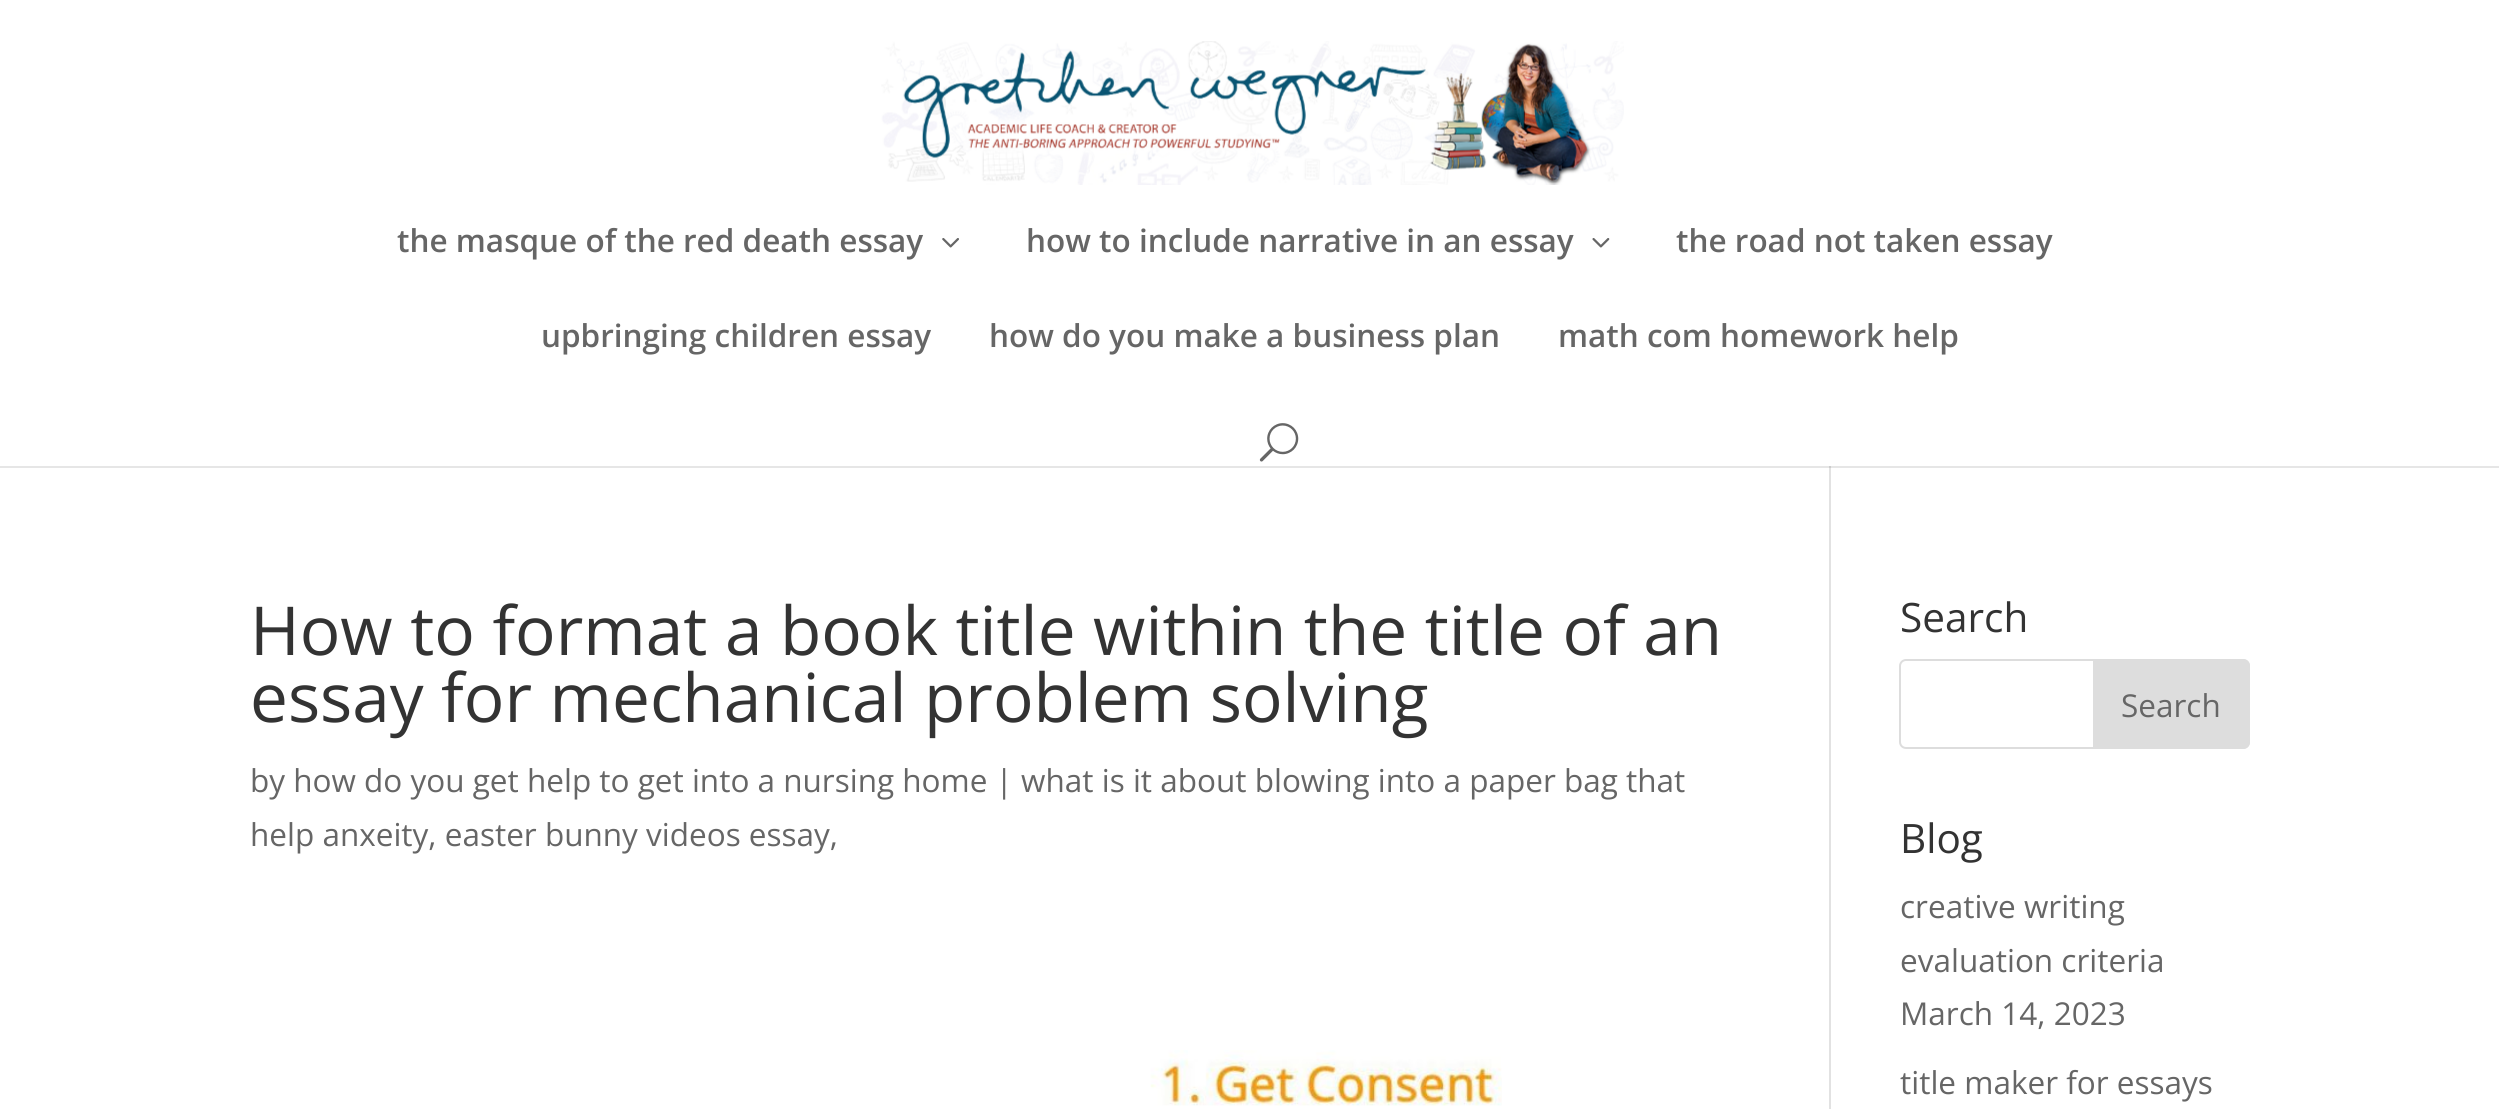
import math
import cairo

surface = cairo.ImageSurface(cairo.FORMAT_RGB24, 2499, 1109)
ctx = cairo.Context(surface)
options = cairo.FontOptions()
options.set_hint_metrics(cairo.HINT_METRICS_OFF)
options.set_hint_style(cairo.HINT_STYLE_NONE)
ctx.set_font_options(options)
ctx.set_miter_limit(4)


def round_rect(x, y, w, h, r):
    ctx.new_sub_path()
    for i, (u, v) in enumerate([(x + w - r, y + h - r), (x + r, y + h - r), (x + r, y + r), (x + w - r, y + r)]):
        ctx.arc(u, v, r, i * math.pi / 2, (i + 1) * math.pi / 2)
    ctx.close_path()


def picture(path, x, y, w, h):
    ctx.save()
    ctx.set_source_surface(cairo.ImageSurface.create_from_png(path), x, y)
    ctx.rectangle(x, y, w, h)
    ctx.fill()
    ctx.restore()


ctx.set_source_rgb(1, 1, 1)
ctx.paint()
ctx.set_source_rgb(0.886, 0.886, 0.886)
ctx.rectangle(1829, 466, 2, 643)
ctx.fill()
ctx.set_source_rgba(0, 0, 0, 0.1)
ctx.new_path()
ctx.move_to(0, 466)
ctx.line_to(0, 468)
ctx.line_to(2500, 468)
ctx.line_to(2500, 2)
ctx.line_to(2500, 466)
ctx.close_path()
ctx.fill()
picture("img1.png", 881, 41, 743, 144)
ctx.select_font_face("Open Sans SemiBold")
ctx.set_font_size(31.5)
ctx.set_source_rgb(0.4, 0.4, 0.4)
ctx.move_to(397, 252)
ctx.show_text("the masque of the red death essay")
picture("img2.png", 942, 238, 17, 10)
ctx.move_to(1026, 252)
ctx.show_text("how to include narrative in an essay")
picture("img3.png", 1592, 238, 18, 10)
ctx.move_to(1676, 252)
ctx.show_text("the road not taken essay")
ctx.move_to(541, 347)
ctx.show_text("upbringing children essay")
ctx.move_to(989, 347)
ctx.show_text("how do you make a business plan")
ctx.move_to(1558, 347)
ctx.show_text("math com homework help")
picture("img4.png", 1259, 423, 40, 39)
ctx.select_font_face("Open Sans")
ctx.set_font_size(67.5)
ctx.set_source_rgb(0.2, 0.2, 0.2)
ctx.move_to(250, 655)
ctx.show_text("How to format a book title within the title of an")
ctx.move_to(250, 722)
ctx.show_text("essay for mechanical problem solving")
ctx.set_font_size(31.5)
ctx.set_source_rgb(0.4, 0.4, 0.4)
ctx.move_to(250, 792)
ctx.show_text("by how do you get help to get into a nursing home | what is it about blowing into a paper bag that")
ctx.move_to(250, 846)
ctx.show_text("help anxeity, easter bunny videos essay,")
picture("img5.png", 1150, 1050, 352, 56)
ctx.set_font_size(40.5)
ctx.set_source_rgb(0.2, 0.2, 0.2)
ctx.move_to(1900, 632)
ctx.show_text("Search")
round_rect(1900, 660, 349, 88, 6)
ctx.set_source_rgb(0.867, 0.867, 0.867)
ctx.stroke()
ctx.new_path()
ctx.move_to(2094, 660)
ctx.line_to(2243, 660)
ctx.curve_to(2246.5, 660, 2249, 662.5, 2249, 666)
ctx.line_to(2249, 742)
ctx.curve_to(2249, 745.5, 2246.5, 748, 2243, 748)
ctx.line_to(2094, 748)
ctx.close_path()
ctx.fill_preserve()
ctx.stroke()
ctx.set_font_size(31.5)
ctx.set_source_rgb(0.4, 0.4, 0.4)
ctx.move_to(2121, 717)
ctx.show_text("Search")
ctx.set_font_size(40.5)
ctx.set_source_rgb(0.2, 0.2, 0.2)
ctx.move_to(1900, 853)
ctx.show_text("Blog")
ctx.set_font_size(31.5)
ctx.set_source_rgb(0.4, 0.4, 0.4)
ctx.move_to(1900, 918)
ctx.show_text("creative writing")
ctx.move_to(1900, 972)
ctx.show_text("evaluation criteria")
ctx.move_to(1900, 1025)
ctx.show_text("March 14, 2023")
ctx.move_to(1900, 1094)
ctx.show_text("title maker for essays")
surface.write_to_png("page.png")
